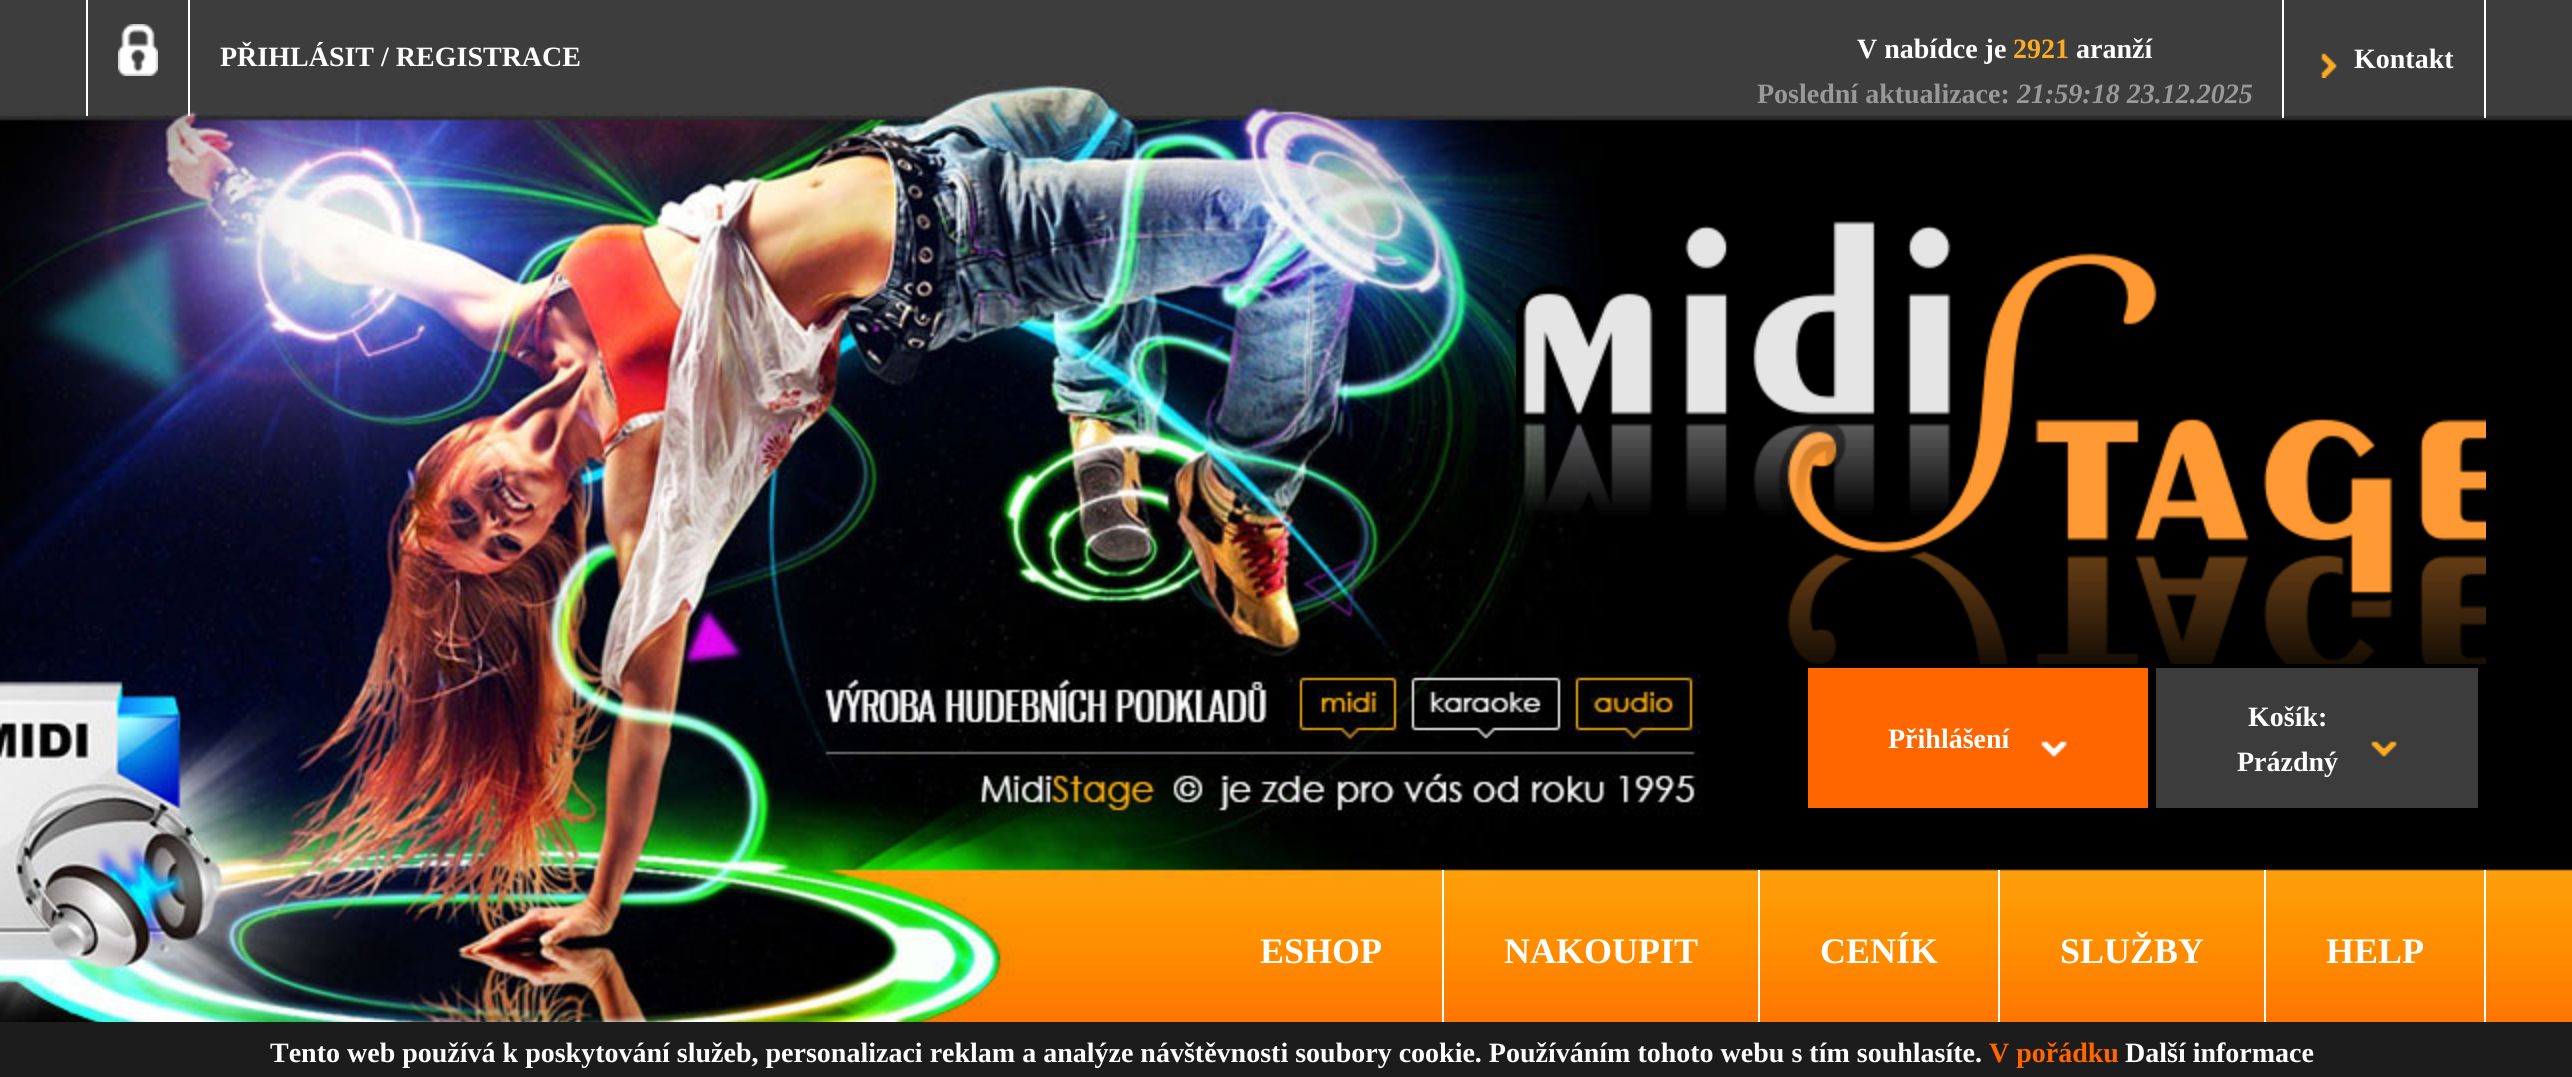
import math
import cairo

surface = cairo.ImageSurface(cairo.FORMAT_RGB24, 2572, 1077)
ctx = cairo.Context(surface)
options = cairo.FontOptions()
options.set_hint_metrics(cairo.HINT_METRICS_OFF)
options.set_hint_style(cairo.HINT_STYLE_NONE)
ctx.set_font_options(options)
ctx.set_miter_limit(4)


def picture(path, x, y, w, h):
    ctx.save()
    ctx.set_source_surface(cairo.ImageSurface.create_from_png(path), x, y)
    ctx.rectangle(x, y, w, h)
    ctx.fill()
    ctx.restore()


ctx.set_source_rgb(1, 1, 1)
ctx.paint()
picture("img1.png", 0, 0, 2572, 1022)
ctx.set_source_rgb(1, 1, 1)
ctx.rectangle(86, 0, 2, 116)
ctx.fill()
picture("img2.png", 118, 24, 40, 52)
ctx.rectangle(188, 0, 2, 116)
ctx.fill()
ctx.select_font_face("Liberation Serif", cairo.FONT_SLANT_NORMAL, cairo.FONT_WEIGHT_BOLD)
ctx.set_font_size(28)
ctx.move_to(220, 66)
ctx.show_text("PŘIHLÁSIT / REGISTRACE")
ctx.rectangle(2282, 0, 2, 118)
ctx.fill()
ctx.move_to(1857, 58)
ctx.show_text("V nabídce je")
ctx.set_source_rgb(0.98, 0.678, 0.137)
ctx.move_to(2013, 58)
ctx.show_text("2921")
ctx.set_source_rgb(1, 1, 1)
ctx.move_to(2076, 58)
ctx.show_text("aranží")
ctx.set_source_rgb(0.6, 0.6, 0.6)
ctx.move_to(1757, 103)
ctx.show_text("Poslední aktualizace:")
ctx.select_font_face("Liberation Serif", cairo.FONT_SLANT_ITALIC, cairo.FONT_WEIGHT_BOLD)
ctx.move_to(2017, 103)
ctx.show_text("21:59:18 23.12.2025")
ctx.set_source_rgb(1, 1, 1)
ctx.rectangle(2484, 0, 2, 118)
ctx.fill()
picture("img3.png", 2321, 53, 16, 25)
ctx.select_font_face("Liberation Serif", cairo.FONT_SLANT_NORMAL, cairo.FONT_WEIGHT_BOLD)
ctx.move_to(2354, 68)
ctx.show_text("Kontakt")
picture("img4.png", 1516, 221, 970, 443)
ctx.set_source_rgb(1, 0.4, 0)
ctx.rectangle(1808, 668, 340, 140)
ctx.fill()
picture("img5.png", 2041, 741, 26, 16)
ctx.set_source_rgb(1, 1, 1)
ctx.move_to(1888, 748)
ctx.show_text("Přihlášení")
ctx.set_source_rgb(0.235, 0.235, 0.235)
ctx.rectangle(2156, 668, 322, 140)
ctx.fill()
picture("img6.png", 2371, 741, 26, 16)
ctx.set_source_rgb(1, 1, 1)
ctx.move_to(2248, 726)
ctx.show_text("Košík:")
ctx.move_to(2237, 771)
ctx.show_text("Prázdný")
ctx.rectangle(1442, 870, 2, 160)
ctx.fill()
ctx.set_font_size(36)
ctx.move_to(1260, 963)
ctx.show_text("ESHOP")
ctx.rectangle(1758, 870, 2, 160)
ctx.fill()
ctx.move_to(1504, 963)
ctx.show_text("NAKOUPIT")
ctx.rectangle(1998, 870, 2, 160)
ctx.fill()
ctx.move_to(1820, 963)
ctx.show_text("CENÍK")
ctx.rectangle(2264, 870, 2, 160)
ctx.fill()
ctx.move_to(2060, 963)
ctx.show_text("SLUŽBY")
ctx.rectangle(2484, 870, 2, 160)
ctx.fill()
ctx.move_to(2326, 963)
ctx.show_text("HELP")
ctx.set_source_rgb(0.11, 0.11, 0.11)
ctx.rectangle(0, 1022, 2572, 55)
ctx.fill()
ctx.set_font_size(28)
ctx.set_source_rgb(1, 1, 1)
ctx.move_to(270, 1062)
ctx.show_text("Tento web používá k poskytování služeb, personalizaci reklam a analýze návštěvnosti soubory cookie. Používáním tohoto webu s tím souhlasíte.")
ctx.set_source_rgb(1, 0.4, 0)
ctx.move_to(1989, 1062)
ctx.show_text("V pořádku")
ctx.set_source_rgb(1, 1, 1)
ctx.move_to(2125, 1062)
ctx.show_text("Další informace")
surface.write_to_png("page.png")
